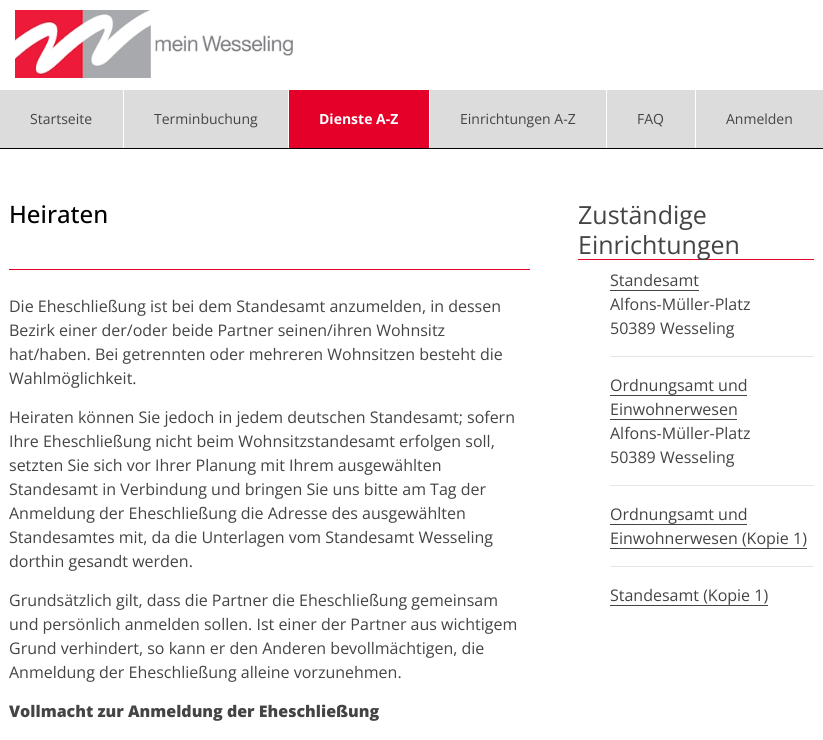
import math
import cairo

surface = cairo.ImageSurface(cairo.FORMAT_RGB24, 823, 740)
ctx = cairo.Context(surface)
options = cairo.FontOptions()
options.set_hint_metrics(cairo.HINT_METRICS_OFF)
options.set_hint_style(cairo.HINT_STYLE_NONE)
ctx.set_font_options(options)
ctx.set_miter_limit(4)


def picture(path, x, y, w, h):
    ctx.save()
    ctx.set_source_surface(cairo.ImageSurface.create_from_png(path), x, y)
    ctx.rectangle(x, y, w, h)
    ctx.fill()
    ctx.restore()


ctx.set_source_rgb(1, 1, 1)
ctx.paint()
picture("img1.png", 15, 10, 278, 68)
ctx.set_source_rgb(0.863, 0.863, 0.863)
ctx.rectangle(0, 90, 823, 58)
ctx.fill()
ctx.set_source_rgb(0, 0, 0)
ctx.rectangle(0, 148, 823, 1)
ctx.fill()
ctx.set_source_rgb(1, 1, 1)
ctx.rectangle(123, 90, 1, 58)
ctx.fill()
ctx.select_font_face("Open Sans")
ctx.set_font_size(14)
ctx.set_source_rgb(0.267, 0.267, 0.267)
ctx.move_to(30, 124)
ctx.show_text("Startseite")
ctx.set_source_rgb(1, 1, 1)
ctx.rectangle(288, 90, 1, 58)
ctx.fill()
ctx.set_source_rgb(0.267, 0.267, 0.267)
ctx.move_to(154, 124)
ctx.show_text("Terminbuchung")
ctx.set_source_rgb(0.898, 0, 0.161)
ctx.rectangle(289, 90, 140, 58)
ctx.fill()
ctx.set_source_rgb(1, 1, 1)
ctx.rectangle(429, 90, 1, 58)
ctx.fill()
ctx.select_font_face("Open Sans", cairo.FONT_SLANT_NORMAL, cairo.FONT_WEIGHT_BOLD)
ctx.move_to(319, 124)
ctx.show_text("Dienste A-Z")
ctx.rectangle(606, 90, 1, 58)
ctx.fill()
ctx.select_font_face("Open Sans")
ctx.set_source_rgb(0.267, 0.267, 0.267)
ctx.move_to(460, 124)
ctx.show_text("Einrichtungen A-Z")
ctx.set_source_rgb(1, 1, 1)
ctx.rectangle(695, 90, 1, 58)
ctx.fill()
ctx.set_source_rgb(0.267, 0.267, 0.267)
ctx.move_to(637, 124)
ctx.show_text("FAQ")
ctx.move_to(726, 124)
ctx.show_text("Anmelden")
ctx.set_source_rgb(0.898, 0, 0.161)
ctx.rectangle(9, 269, 521, 1)
ctx.fill()
ctx.select_font_face("Open Sans Medium")
ctx.set_font_size(24)
ctx.set_source_rgb(0, 0, 0)
ctx.move_to(9, 223)
ctx.show_text("Heiraten")
ctx.select_font_face("Open Sans")
ctx.set_font_size(16)
ctx.set_source_rgb(0.267, 0.267, 0.267)
ctx.move_to(9, 312)
ctx.show_text("Die Eheschließung ist bei dem Standesamt anzumelden, in dessen")
ctx.move_to(9, 336)
ctx.show_text("Bezirk einer der/oder beide Partner seinen/ihren Wohnsitz")
ctx.move_to(9, 360)
ctx.show_text("hat/haben. Bei getrennten oder mehreren Wohnsitzen besteht die")
ctx.move_to(9, 384)
ctx.show_text("Wahlmöglichkeit.")
ctx.move_to(9, 423)
ctx.show_text("Heiraten können Sie jedoch in jedem deutschen Standesamt; sofern")
ctx.move_to(9, 447)
ctx.show_text("Ihre Eheschließung nicht beim Wohnsitzstandesamt erfolgen soll,")
ctx.move_to(9, 471)
ctx.show_text("setzten Sie sich vor Ihrer Planung mit Ihrem ausgewählten")
ctx.move_to(9, 495)
ctx.show_text("Standesamt in Verbindung und bringen Sie uns bitte am Tag der")
ctx.move_to(9, 519)
ctx.show_text("Anmeldung der Eheschließung die Adresse des ausgewählten")
ctx.move_to(9, 543)
ctx.show_text("Standesamtes mit, da die Unterlagen vom Standesamt Wesseling")
ctx.move_to(9, 567)
ctx.show_text("dorthin gesandt werden.")
ctx.move_to(9, 606)
ctx.show_text("Grundsätzlich gilt, dass die Partner die Eheschließung gemeinsam")
ctx.move_to(9, 630)
ctx.show_text("und persönlich anmelden sollen. Ist einer der Partner aus wichtigem")
ctx.move_to(9, 654)
ctx.show_text("Grund verhindert, so kann er den Anderen bevollmächtigen, die")
ctx.move_to(9, 678)
ctx.show_text("Anmeldung der Eheschließung alleine vorzunehmen.")
ctx.select_font_face("Open Sans ExtraBold")
ctx.move_to(9, 717)
ctx.show_text("Vollmacht zur Anmeldung der Eheschließung")
ctx.set_source_rgb(0.898, 0, 0.161)
ctx.rectangle(578, 259, 236, 1)
ctx.fill()
ctx.select_font_face("Open Sans")
ctx.set_font_size(25)
ctx.set_source_rgb(0.267, 0.267, 0.267)
ctx.move_to(578, 224)
ctx.show_text("Zuständige")
ctx.move_to(578, 254)
ctx.show_text("Einrichtungen")
ctx.set_font_size(16)
ctx.move_to(610, 286)
ctx.show_text("Standesamt")
ctx.rectangle(610, 290, 89, 1)
ctx.fill()
ctx.move_to(610, 310)
ctx.show_text("Alfons-Müller-Platz")
ctx.move_to(610, 334)
ctx.show_text("50389 Wesseling")
ctx.set_source_rgb(0.902, 0.902, 0.902)
ctx.rectangle(610, 356, 204, 1)
ctx.fill()
ctx.set_source_rgb(0.267, 0.267, 0.267)
ctx.move_to(610, 391)
ctx.show_text("Ordnungsamt und")
ctx.rectangle(610, 395, 137, 1)
ctx.fill()
ctx.move_to(610, 415)
ctx.show_text("Einwohnerwesen")
ctx.rectangle(610, 419, 127, 1)
ctx.fill()
ctx.move_to(610, 439)
ctx.show_text("Alfons-Müller-Platz")
ctx.move_to(610, 463)
ctx.show_text("50389 Wesseling")
ctx.set_source_rgb(0.902, 0.902, 0.902)
ctx.rectangle(610, 485, 204, 1)
ctx.fill()
ctx.set_source_rgb(0.267, 0.267, 0.267)
ctx.move_to(610, 520)
ctx.show_text("Ordnungsamt und")
ctx.rectangle(610, 524, 137, 1)
ctx.fill()
ctx.move_to(610, 544)
ctx.show_text("Einwohnerwesen (Kopie 1)")
ctx.rectangle(610, 548, 197, 1)
ctx.fill()
ctx.set_source_rgb(0.902, 0.902, 0.902)
ctx.rectangle(610, 566, 204, 1)
ctx.fill()
ctx.set_source_rgb(0.267, 0.267, 0.267)
ctx.move_to(610, 601)
ctx.show_text("Standesamt (Kopie 1)")
ctx.rectangle(610, 605, 158, 1)
ctx.fill()
surface.write_to_png("page.png")
